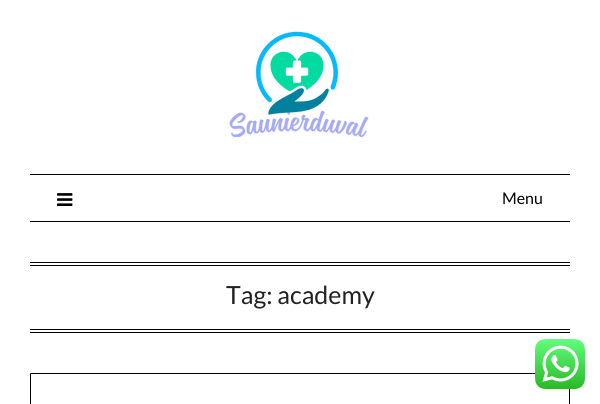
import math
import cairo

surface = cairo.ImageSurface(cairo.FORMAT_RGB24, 600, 404)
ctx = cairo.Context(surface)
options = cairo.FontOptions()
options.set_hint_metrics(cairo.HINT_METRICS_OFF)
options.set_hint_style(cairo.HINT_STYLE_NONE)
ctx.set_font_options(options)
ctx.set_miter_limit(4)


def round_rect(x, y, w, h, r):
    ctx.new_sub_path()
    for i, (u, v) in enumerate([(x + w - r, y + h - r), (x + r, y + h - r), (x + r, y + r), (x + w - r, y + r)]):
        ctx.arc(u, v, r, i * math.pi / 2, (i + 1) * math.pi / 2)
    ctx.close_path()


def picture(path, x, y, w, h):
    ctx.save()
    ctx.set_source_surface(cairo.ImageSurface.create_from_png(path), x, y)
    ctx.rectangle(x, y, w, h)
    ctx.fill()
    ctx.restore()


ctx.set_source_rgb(1, 1, 1)
ctx.paint()
picture("img1.png", 229, 31, 140, 106)
ctx.set_source_rgb(0, 0, 0)
ctx.rectangle(30, 174, 540, 1)
ctx.fill()
ctx.rectangle(30, 221, 540, 1)
ctx.fill()
picture("img2.png", 57, 193, 16, 13)
ctx.select_font_face("Lato")
ctx.set_font_size(16)
ctx.move_to(502, 204)
ctx.show_text("Menu")
ctx.rectangle(30, 262, 540, 1)
ctx.fill()
ctx.rectangle(30, 265, 540, 1)
ctx.fill()
ctx.rectangle(30, 329, 540, 1)
ctx.fill()
ctx.rectangle(30, 332, 540, 1)
ctx.fill()
ctx.set_font_size(25)
ctx.set_source_rgb(0.133, 0.133, 0.133)
ctx.move_to(226, 304)
ctx.show_text("Tag: academy")
round_rect(30.5, 373.5, 539, 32, 0.5)
ctx.set_source_rgb(0, 0, 0)
ctx.set_line_width(1)
ctx.stroke()
picture("img3.png", 535, 339, 50, 50)
surface.write_to_png("page.png")
